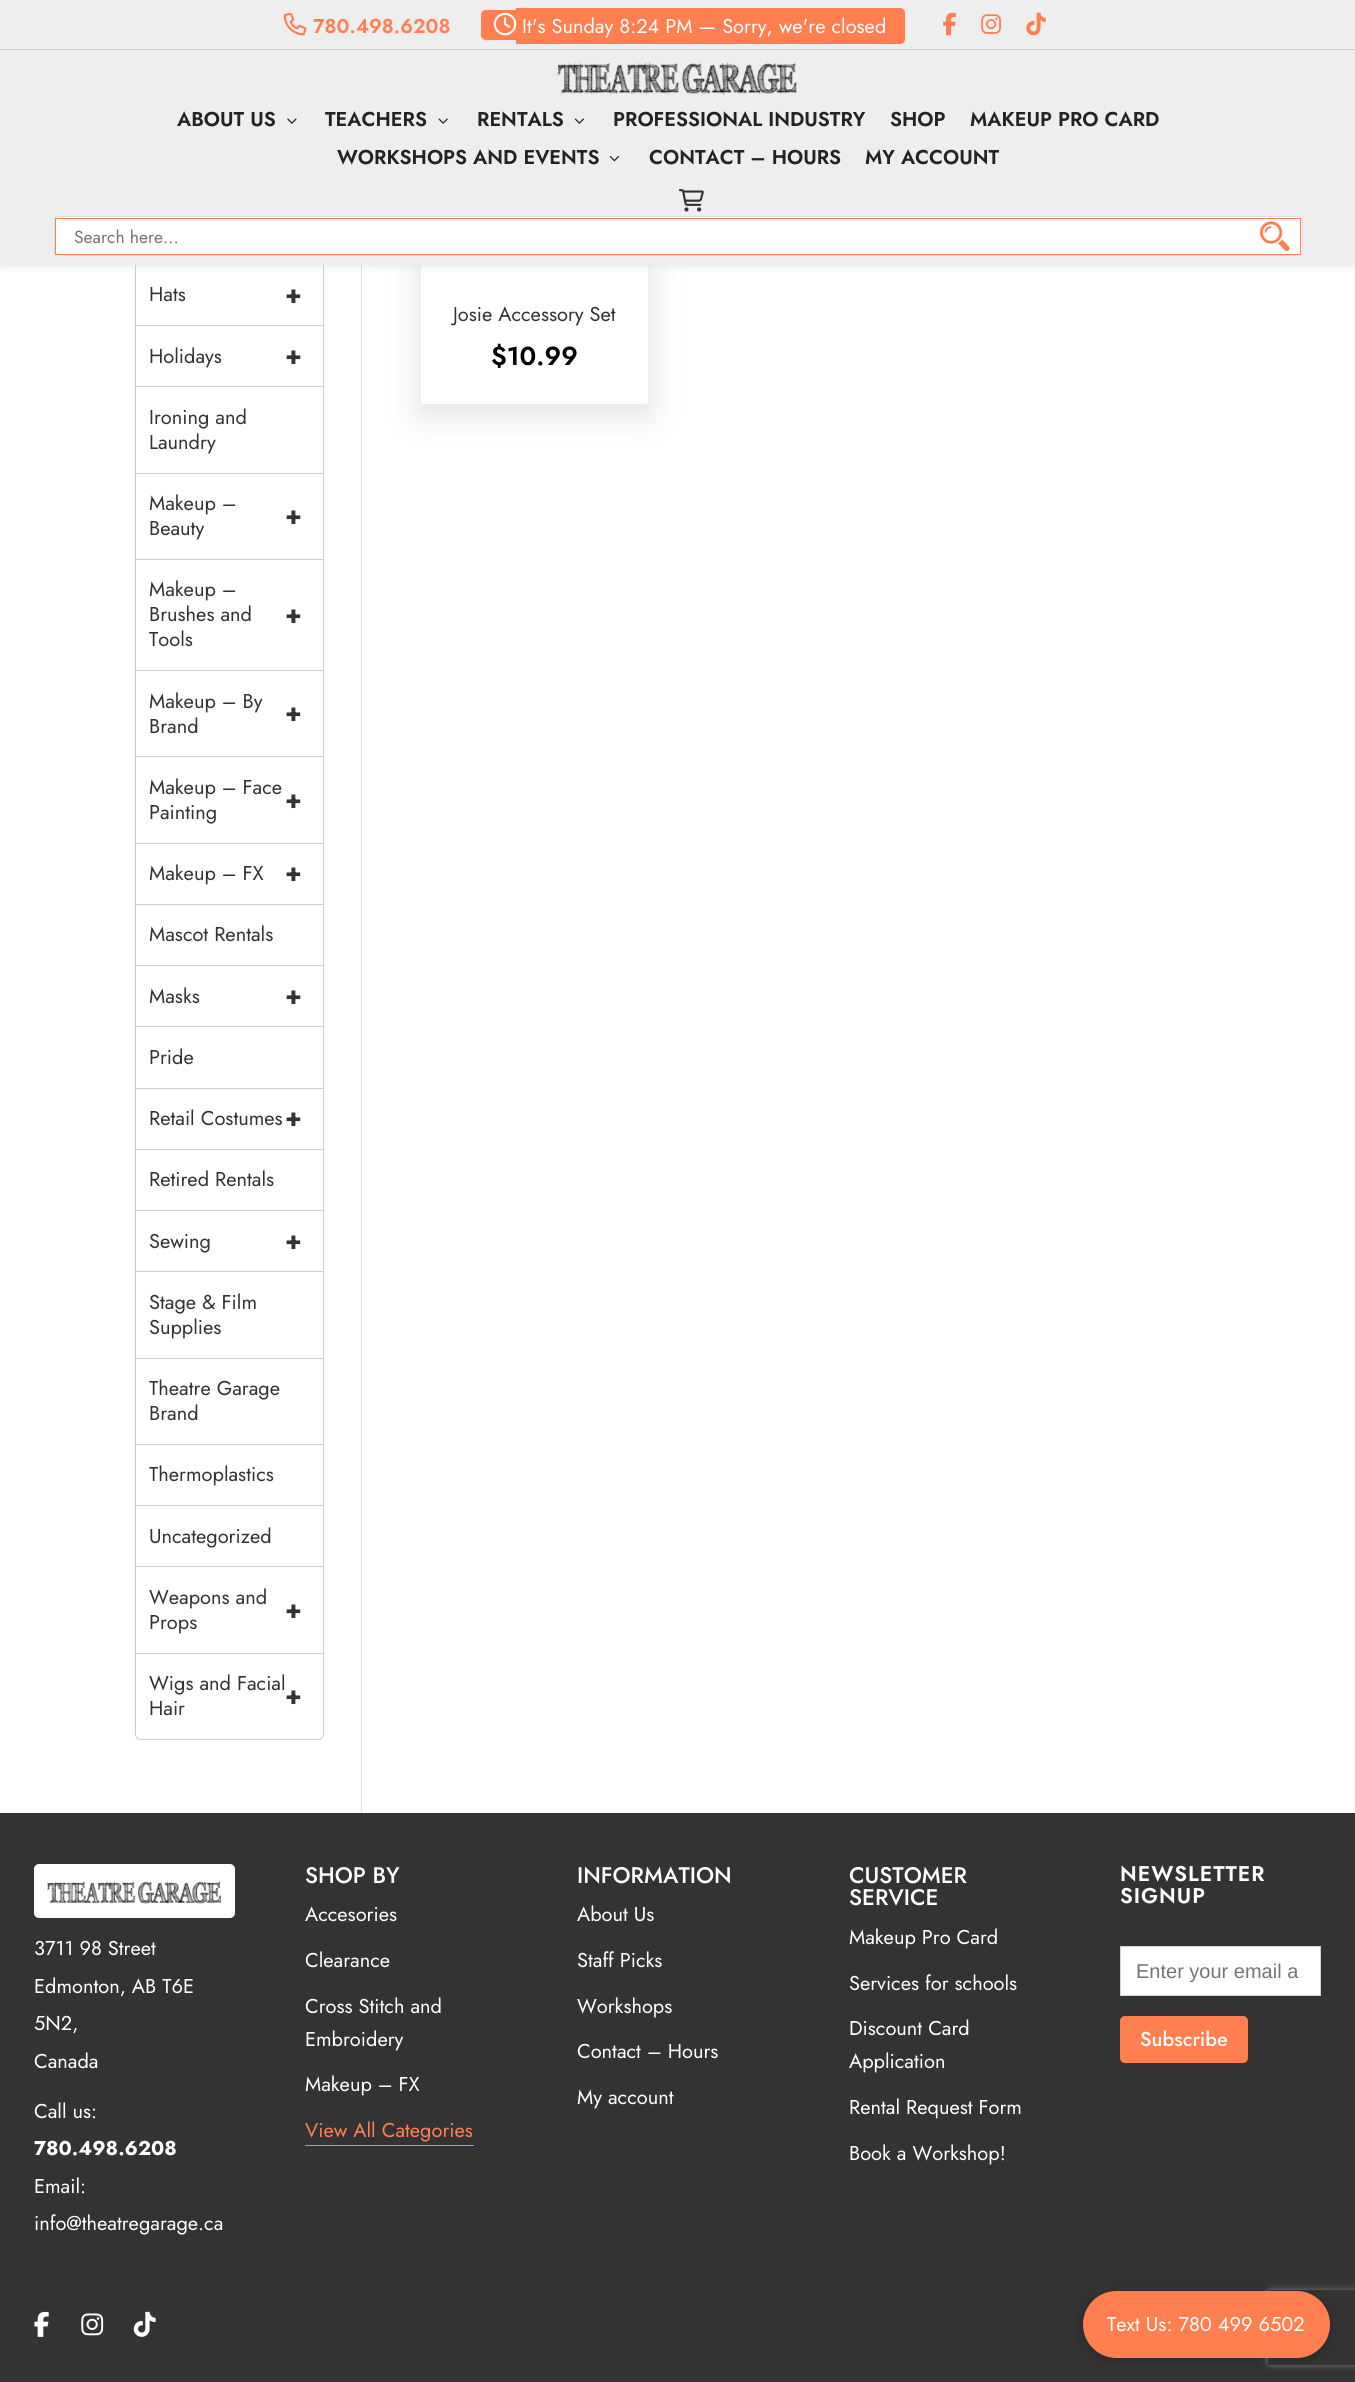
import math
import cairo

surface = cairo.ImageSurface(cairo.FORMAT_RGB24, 1355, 2382)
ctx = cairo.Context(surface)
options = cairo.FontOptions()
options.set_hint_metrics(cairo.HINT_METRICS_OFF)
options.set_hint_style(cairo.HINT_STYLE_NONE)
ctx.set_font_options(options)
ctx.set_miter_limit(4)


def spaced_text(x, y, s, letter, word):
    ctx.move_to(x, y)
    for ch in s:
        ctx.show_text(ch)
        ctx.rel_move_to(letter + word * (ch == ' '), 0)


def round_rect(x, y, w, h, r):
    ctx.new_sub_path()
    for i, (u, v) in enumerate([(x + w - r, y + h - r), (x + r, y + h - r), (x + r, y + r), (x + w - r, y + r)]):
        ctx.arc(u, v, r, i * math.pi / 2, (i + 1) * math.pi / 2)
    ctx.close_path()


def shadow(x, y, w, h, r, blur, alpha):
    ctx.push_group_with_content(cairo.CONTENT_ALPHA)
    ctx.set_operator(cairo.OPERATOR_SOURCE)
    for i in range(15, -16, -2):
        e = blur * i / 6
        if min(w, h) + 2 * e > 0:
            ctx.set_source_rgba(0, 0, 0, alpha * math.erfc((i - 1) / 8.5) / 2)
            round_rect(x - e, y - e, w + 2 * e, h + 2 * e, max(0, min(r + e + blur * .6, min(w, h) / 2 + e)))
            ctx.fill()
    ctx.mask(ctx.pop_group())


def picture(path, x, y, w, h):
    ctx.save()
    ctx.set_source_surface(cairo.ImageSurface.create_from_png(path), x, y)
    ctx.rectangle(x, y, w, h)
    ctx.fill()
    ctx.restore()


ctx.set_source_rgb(1, 1, 1)
ctx.paint()
ctx.set_source_rgb(0.886, 0.886, 0.886)
ctx.rectangle(361, 265, 1, 1548)
ctx.fill()
round_rect(135.5, -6.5, 188, 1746, 5.5)
ctx.set_source_rgb(0.8, 0.8, 0.8)
ctx.set_line_width(1)
ctx.stroke()
ctx.set_source_rgb(0, 0, 0)
shadow(0, 49, 1355, 216, 0, 4.5, 0.1)
ctx.save()
ctx.set_fill_rule(cairo.FILL_RULE_EVEN_ODD)
ctx.new_path()
ctx.move_to(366, 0)
ctx.line_to(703, 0)
ctx.line_to(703, 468)
ctx.line_to(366, 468)
ctx.close_path()
ctx.move_to(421, -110)
ctx.line_to(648, -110)
ctx.line_to(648, 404)
ctx.line_to(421, 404)
ctx.close_path()
ctx.clip()
ctx.set_source_rgb(0.392, 0.392, 0.435)
shadow(421, -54, 227, 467, 0, 18, 0.2)
ctx.restore()
ctx.set_source_rgb(0.933, 0.933, 0.933)
ctx.rectangle(0, 0, 1355, 49)
ctx.fill()
ctx.set_source_rgb(0.8, 0.8, 0.8)
ctx.rectangle(0, 49, 1355, 1)
ctx.fill()
picture("img1.png", 283, 12, 24, 24)
ctx.select_font_face("Jost SemiBold")
ctx.set_font_size(20)
ctx.set_source_rgb(1, 0.498, 0.314)
ctx.move_to(313, 33)
ctx.show_text("780.498.6208")
ctx.new_path()
ctx.move_to(486, 10)
ctx.line_to(516, 10)
ctx.line_to(516, 40)
ctx.line_to(486, 40)
ctx.curve_to(483, 40, 481, 38, 481, 35)
ctx.line_to(481, 15)
ctx.curve_to(481, 12, 483, 10, 486, 10)
ctx.close_path()
ctx.fill()
ctx.rectangle(516, 8, 370, 36)
ctx.fill()
ctx.new_path()
ctx.move_to(886, 8)
ctx.line_to(900, 8)
ctx.curve_to(903, 8, 905, 10, 905, 13)
ctx.line_to(905, 39)
ctx.curve_to(905, 42, 903, 44, 900, 44)
ctx.line_to(886, 44)
ctx.close_path()
ctx.fill()
picture("img2.png", 493, 12, 24, 24)
ctx.select_font_face("Jost")
ctx.set_source_rgb(1, 1, 1)
ctx.move_to(522, 33)
ctx.show_text("It's Sunday 8:24 PM — Sorry, we're closed")
picture("img3.png", 943, 12, 13, 24)
picture("img4.png", 981, 14, 20, 20)
picture("img5.png", 1026, 12, 20, 24)
ctx.set_source_rgb(0.933, 0.933, 0.933)
ctx.rectangle(0, 50, 1355, 215)
ctx.fill()
picture("img6.png", 557, 62, 241, 34)
ctx.select_font_face("Jost SemiBold")
ctx.set_source_rgb(0.137, 0.137, 0.137)
ctx.move_to(177, 126)
ctx.show_text("ABOUT US")
picture("img7.png", 287, 118, 10, 6)
ctx.move_to(325, 126)
ctx.show_text("TEACHERS")
picture("img8.png", 438, 118, 10, 6)
ctx.move_to(477, 126)
ctx.show_text("RENTALS")
picture("img9.png", 574, 118, 10, 6)
ctx.move_to(613, 126)
ctx.show_text("PROFESSIONAL INDUSTRY")
ctx.move_to(890, 126)
ctx.show_text("SHOP")
ctx.move_to(970, 126)
ctx.show_text("MAKEUP PRO CARD")
ctx.move_to(337, 164)
ctx.show_text("WORKSHOPS AND EVENTS")
picture("img10.png", 609, 156, 10, 6)
ctx.move_to(649, 164)
ctx.show_text("CONTACT – HOURS")
ctx.move_to(865, 164)
ctx.show_text("MY ACCOUNT")
picture("img11.png", 678, 189, 26, 23)
ctx.set_source_rgb(1, 1, 1)
round_rect(54.5, 216.5, 1248, 39, 5.5)
ctx.fill_preserve()
ctx.set_source_rgb(0.886, 0.882, 0.902)
ctx.stroke()
ctx.rectangle(55.5, 218.5, 1245, 36)
ctx.set_source_rgb(1, 0.498, 0.314)
ctx.stroke()
ctx.select_font_face("Jost")
ctx.set_font_size(17.5)
ctx.set_source_rgb(0.459, 0.459, 0.459)
ctx.move_to(74, 243)
ctx.show_text("Search here...")
picture("img12.png", 1260, 221, 30, 30)
ctx.set_source_rgb(0.8, 0.8, 0.8)
ctx.rectangle(136, 325, 187, 1)
ctx.fill()
ctx.set_font_size(20)
ctx.set_source_rgb(0.2, 0.2, 0.2)
ctx.move_to(149, 301)
ctx.show_text("Hats")
ctx.select_font_face("Jost", cairo.FONT_SLANT_NORMAL, cairo.FONT_WEIGHT_BOLD)
ctx.set_font_size(25)
ctx.move_to(285, 303)
ctx.show_text("+")
ctx.set_source_rgb(0.8, 0.8, 0.8)
ctx.rectangle(136, 386, 187, 1)
ctx.fill()
ctx.select_font_face("Jost")
ctx.set_font_size(20)
ctx.set_source_rgb(0.2, 0.2, 0.2)
ctx.move_to(149, 363)
ctx.show_text("Holidays")
ctx.select_font_face("Jost", cairo.FONT_SLANT_NORMAL, cairo.FONT_WEIGHT_BOLD)
ctx.set_font_size(25)
ctx.move_to(285, 364)
ctx.show_text("+")
ctx.set_source_rgb(0.8, 0.8, 0.8)
ctx.rectangle(136, 473, 187, 1)
ctx.fill()
ctx.select_font_face("Jost")
ctx.set_font_size(20)
ctx.set_source_rgb(0.2, 0.2, 0.2)
ctx.move_to(149, 424)
ctx.show_text("Ironing and")
ctx.move_to(149, 449)
ctx.show_text("Laundry")
ctx.set_source_rgb(0.8, 0.8, 0.8)
ctx.rectangle(136, 559, 187, 1)
ctx.fill()
ctx.set_source_rgb(0.2, 0.2, 0.2)
ctx.move_to(149, 510)
ctx.show_text("Makeup –")
ctx.select_font_face("Jost", cairo.FONT_SLANT_NORMAL, cairo.FONT_WEIGHT_BOLD)
ctx.set_font_size(25)
ctx.move_to(285, 524)
ctx.show_text("+")
ctx.select_font_face("Jost")
ctx.set_font_size(20)
ctx.move_to(149, 535)
ctx.show_text("Beauty")
ctx.set_source_rgb(0.8, 0.8, 0.8)
ctx.rectangle(136, 670, 187, 1)
ctx.fill()
ctx.set_source_rgb(0.2, 0.2, 0.2)
ctx.move_to(149, 596)
ctx.show_text("Makeup –")
ctx.move_to(149, 621)
ctx.show_text("Brushes and")
ctx.select_font_face("Jost", cairo.FONT_SLANT_NORMAL, cairo.FONT_WEIGHT_BOLD)
ctx.set_font_size(25)
ctx.move_to(285, 623)
ctx.show_text("+")
ctx.select_font_face("Jost")
ctx.set_font_size(20)
ctx.move_to(149, 646)
ctx.show_text("Tools")
ctx.set_source_rgb(0.8, 0.8, 0.8)
ctx.rectangle(136, 756, 187, 1)
ctx.fill()
ctx.set_source_rgb(0.2, 0.2, 0.2)
ctx.move_to(149, 708)
ctx.show_text("Makeup – By")
ctx.select_font_face("Jost", cairo.FONT_SLANT_NORMAL, cairo.FONT_WEIGHT_BOLD)
ctx.set_font_size(25)
ctx.move_to(285, 721)
ctx.show_text("+")
ctx.select_font_face("Jost")
ctx.set_font_size(20)
ctx.move_to(149, 733)
ctx.show_text("Brand")
ctx.set_source_rgb(0.8, 0.8, 0.8)
ctx.rectangle(136, 843, 187, 1)
ctx.fill()
ctx.set_source_rgb(0.2, 0.2, 0.2)
ctx.move_to(149, 794)
ctx.show_text("Makeup – Face")
ctx.select_font_face("Jost", cairo.FONT_SLANT_NORMAL, cairo.FONT_WEIGHT_BOLD)
ctx.set_font_size(25)
ctx.move_to(285, 808)
ctx.show_text("+")
ctx.select_font_face("Jost")
ctx.set_font_size(20)
ctx.move_to(149, 819)
ctx.show_text("Painting")
ctx.set_source_rgb(0.8, 0.8, 0.8)
ctx.rectangle(136, 904, 187, 1)
ctx.fill()
ctx.set_source_rgb(0.2, 0.2, 0.2)
ctx.move_to(149, 880)
ctx.show_text("Makeup – FX")
ctx.select_font_face("Jost", cairo.FONT_SLANT_NORMAL, cairo.FONT_WEIGHT_BOLD)
ctx.set_font_size(25)
ctx.move_to(285, 881)
ctx.show_text("+")
ctx.set_source_rgb(0.8, 0.8, 0.8)
ctx.rectangle(136, 965, 187, 1)
ctx.fill()
ctx.select_font_face("Jost")
ctx.set_font_size(20)
ctx.set_source_rgb(0.2, 0.2, 0.2)
ctx.move_to(149, 941)
ctx.show_text("Mascot Rentals")
ctx.set_source_rgb(0.8, 0.8, 0.8)
ctx.rectangle(136, 1026, 187, 1)
ctx.fill()
ctx.set_source_rgb(0.2, 0.2, 0.2)
ctx.move_to(149, 1003)
ctx.show_text("Masks")
ctx.select_font_face("Jost", cairo.FONT_SLANT_NORMAL, cairo.FONT_WEIGHT_BOLD)
ctx.set_font_size(25)
ctx.move_to(285, 1004)
ctx.show_text("+")
ctx.set_source_rgb(0.8, 0.8, 0.8)
ctx.rectangle(136, 1088, 187, 1)
ctx.fill()
ctx.select_font_face("Jost")
ctx.set_font_size(20)
ctx.set_source_rgb(0.2, 0.2, 0.2)
ctx.move_to(149, 1064)
ctx.show_text("Pride")
ctx.set_source_rgb(0.8, 0.8, 0.8)
ctx.rectangle(136, 1149, 187, 1)
ctx.fill()
ctx.set_source_rgb(0.2, 0.2, 0.2)
ctx.move_to(149, 1125)
ctx.show_text("Retail Costumes")
ctx.select_font_face("Jost", cairo.FONT_SLANT_NORMAL, cairo.FONT_WEIGHT_BOLD)
ctx.set_font_size(25)
ctx.move_to(285, 1126)
ctx.show_text("+")
ctx.set_source_rgb(0.8, 0.8, 0.8)
ctx.rectangle(136, 1210, 187, 1)
ctx.fill()
ctx.select_font_face("Jost")
ctx.set_font_size(20)
ctx.set_source_rgb(0.2, 0.2, 0.2)
ctx.move_to(149, 1186)
ctx.show_text("Retired Rentals")
ctx.set_source_rgb(0.8, 0.8, 0.8)
ctx.rectangle(136, 1271, 187, 1)
ctx.fill()
ctx.set_source_rgb(0.2, 0.2, 0.2)
ctx.move_to(149, 1248)
ctx.show_text("Sewing")
ctx.select_font_face("Jost", cairo.FONT_SLANT_NORMAL, cairo.FONT_WEIGHT_BOLD)
ctx.set_font_size(25)
ctx.move_to(285, 1249)
ctx.show_text("+")
ctx.set_source_rgb(0.8, 0.8, 0.8)
ctx.rectangle(136, 1358, 187, 1)
ctx.fill()
ctx.select_font_face("Jost")
ctx.set_font_size(20)
ctx.set_source_rgb(0.2, 0.2, 0.2)
ctx.move_to(149, 1309)
ctx.show_text("Stage & Film")
ctx.move_to(149, 1334)
ctx.show_text("Supplies")
ctx.set_source_rgb(0.8, 0.8, 0.8)
ctx.rectangle(136, 1444, 187, 1)
ctx.fill()
ctx.set_source_rgb(0.2, 0.2, 0.2)
ctx.move_to(149, 1395)
ctx.show_text("Theatre Garage")
ctx.move_to(149, 1420)
ctx.show_text("Brand")
ctx.set_source_rgb(0.8, 0.8, 0.8)
ctx.rectangle(136, 1505, 187, 1)
ctx.fill()
ctx.set_source_rgb(0.2, 0.2, 0.2)
ctx.move_to(149, 1481)
ctx.show_text("Thermoplastics")
ctx.set_source_rgb(0.8, 0.8, 0.8)
ctx.rectangle(136, 1566, 187, 1)
ctx.fill()
ctx.set_source_rgb(0.2, 0.2, 0.2)
ctx.move_to(149, 1543)
ctx.show_text("Uncategorized")
ctx.set_source_rgb(0.8, 0.8, 0.8)
ctx.rectangle(136, 1653, 187, 1)
ctx.fill()
ctx.set_source_rgb(0.2, 0.2, 0.2)
ctx.move_to(149, 1604)
ctx.show_text("Weapons and")
ctx.select_font_face("Jost", cairo.FONT_SLANT_NORMAL, cairo.FONT_WEIGHT_BOLD)
ctx.set_font_size(25)
ctx.move_to(285, 1618)
ctx.show_text("+")
ctx.select_font_face("Jost")
ctx.set_font_size(20)
ctx.move_to(149, 1629)
ctx.show_text("Props")
ctx.move_to(149, 1690)
ctx.show_text("Wigs and Facial")
ctx.select_font_face("Jost", cairo.FONT_SLANT_NORMAL, cairo.FONT_WEIGHT_BOLD)
ctx.set_font_size(25)
ctx.move_to(285, 1704)
ctx.show_text("+")
ctx.select_font_face("Jost")
ctx.set_font_size(20)
ctx.move_to(149, 1715)
ctx.show_text("Hair")
ctx.move_to(453, 321)
ctx.show_text("Josie Accessory Set")
ctx.select_font_face("Jost SemiBold")
ctx.set_font_size(26)
ctx.set_source_rgb(0, 0, 0)
ctx.move_to(491, 365)
ctx.show_text("$10.99")
ctx.set_source_rgb(0.2, 0.2, 0.2)
ctx.rectangle(0, 1813, 1355, 569)
ctx.fill()
ctx.set_source_rgb(1, 1, 1)
round_rect(34, 1864, 201, 54, 5)
ctx.fill()
picture("img13.png", 47, 1881, 175, 24)
ctx.select_font_face("Jost")
ctx.set_font_size(20)
ctx.move_to(34, 1955)
ctx.show_text("3711 98 Street")
ctx.move_to(34, 1993)
ctx.show_text("Edmonton, AB T6E")
ctx.move_to(34, 2030)
ctx.show_text("5N2,")
ctx.move_to(34, 2068)
ctx.show_text("Canada")
ctx.move_to(34, 2118)
ctx.show_text("Call us:")
ctx.select_font_face("Jost", cairo.FONT_SLANT_NORMAL, cairo.FONT_WEIGHT_BOLD)
ctx.move_to(34, 2155)
ctx.show_text("780.498.6208")
ctx.select_font_face("Jost")
ctx.move_to(34, 2193)
ctx.show_text("Email:")
ctx.move_to(34, 2230)
ctx.show_text("info@theatregarage.ca")
picture("img14.png", 34, 2311, 15, 26)
picture("img15.png", 81, 2313, 23, 23)
picture("img16.png", 133, 2311, 23, 26)
ctx.select_font_face("Jost Medium")
ctx.set_font_size(22.5)
ctx.move_to(305, 1883)
ctx.show_text("SHOP BY")
ctx.select_font_face("Jost")
ctx.set_font_size(20)
ctx.move_to(305, 1921)
ctx.show_text("Accesories")
ctx.move_to(305, 1967)
ctx.show_text("Clearance")
ctx.move_to(305, 2013)
ctx.show_text("Cross Stitch and")
ctx.move_to(305, 2046)
ctx.show_text("Embroidery")
ctx.move_to(305, 2091)
ctx.show_text("Makeup – FX")
ctx.set_source_rgb(1, 0.498, 0.314)
ctx.move_to(305, 2137)
ctx.show_text("View All Categories")
ctx.rectangle(305, 2145, 169, 1)
ctx.fill()
ctx.select_font_face("Jost Medium")
ctx.set_font_size(22.5)
ctx.set_source_rgb(1, 1, 1)
ctx.move_to(577, 1883)
ctx.show_text("INFORMATION")
ctx.select_font_face("Jost")
ctx.set_font_size(20)
ctx.move_to(577, 1921)
ctx.show_text("About Us")
ctx.move_to(577, 1967)
ctx.show_text("Staff Picks")
ctx.move_to(577, 2013)
ctx.show_text("Workshops")
ctx.move_to(577, 2058)
ctx.show_text("Contact – Hours")
ctx.move_to(577, 2104)
ctx.show_text("My account")
ctx.select_font_face("Jost Medium")
ctx.set_font_size(22.5)
ctx.move_to(849, 1883)
ctx.show_text("CUSTOMER")
ctx.move_to(849, 1905)
ctx.show_text("SERVICE")
ctx.select_font_face("Jost")
ctx.set_font_size(20)
ctx.move_to(849, 1944)
ctx.show_text("Makeup Pro Card")
ctx.move_to(849, 1990)
ctx.show_text("Services for schools")
ctx.move_to(849, 2035)
ctx.show_text("Discount Card")
ctx.move_to(849, 2068)
ctx.show_text("Application")
ctx.move_to(849, 2114)
ctx.show_text("Rental Request Form")
ctx.move_to(849, 2160)
ctx.show_text("Book a Workshop!")
ctx.select_font_face("Jost SemiBold")
ctx.set_font_size(21.25)
spaced_text(1120, 1881, "NEWSLETTER", 1, 0)
spaced_text(1120, 1903, "SIGNUP", 1, 0)
ctx.rectangle(1120.5, 1946.5, 200, 49)
ctx.fill_preserve()
ctx.set_source_rgb(0.824, 0.824, 0.824)
ctx.stroke()
ctx.select_font_face("Liberation Sans")
ctx.set_font_size(20)
ctx.set_source_rgb(0.459, 0.459, 0.459)
ctx.move_to(1136, 1978)
ctx.show_text("Enter your email a")
ctx.set_source_rgb(1, 0.498, 0.314)
round_rect(1120, 2016, 128, 47, 5)
ctx.fill()
ctx.select_font_face("Jost Medium")
ctx.set_source_rgb(1, 1, 1)
ctx.move_to(1140, 2046)
ctx.show_text("Subscribe")
ctx.set_source_rgb(0, 0, 0)
shadow(1083, 2294, 247, 66, 33, 6, 0.2)
ctx.save()
ctx.set_fill_rule(cairo.FILL_RULE_EVEN_ODD)
ctx.new_path()
ctx.move_to(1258, 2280)
ctx.line_to(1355, 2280)
ctx.line_to(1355, 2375)
ctx.line_to(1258, 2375)
ctx.close_path()
ctx.move_to(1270.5, 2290)
ctx.line_to(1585.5, 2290)
ctx.curve_to(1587, 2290, 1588, 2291, 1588, 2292.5)
ctx.line_to(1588, 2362.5)
ctx.curve_to(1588, 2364, 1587, 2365, 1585.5, 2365)
ctx.line_to(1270.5, 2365)
ctx.curve_to(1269, 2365, 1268, 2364, 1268, 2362.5)
ctx.line_to(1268, 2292.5)
ctx.curve_to(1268, 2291, 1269, 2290, 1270.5, 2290)
ctx.close_path()
ctx.clip()
ctx.set_source_rgb(0.502, 0.502, 0.502)
shadow(1268, 2290, 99, 75, 2.5, 3, 1)
ctx.restore()
ctx.set_source_rgb(1, 0.498, 0.314)
round_rect(1083, 2291, 247, 67, 33.5)
ctx.fill()
ctx.select_font_face("Jost")
ctx.set_source_rgb(1, 1, 1)
ctx.move_to(1107, 2331)
ctx.show_text("Text Us: 780 499 6502")
surface.write_to_png("page.png")
